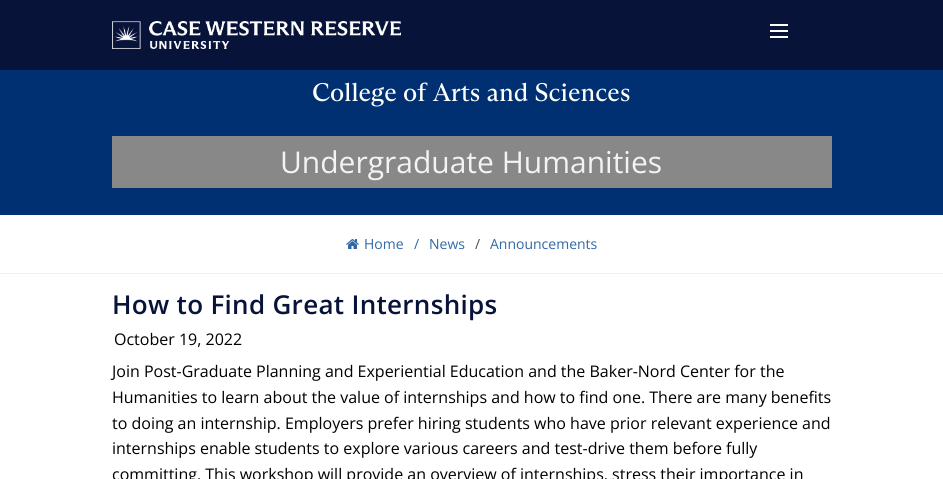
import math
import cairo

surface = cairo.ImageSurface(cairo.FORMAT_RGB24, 943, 479)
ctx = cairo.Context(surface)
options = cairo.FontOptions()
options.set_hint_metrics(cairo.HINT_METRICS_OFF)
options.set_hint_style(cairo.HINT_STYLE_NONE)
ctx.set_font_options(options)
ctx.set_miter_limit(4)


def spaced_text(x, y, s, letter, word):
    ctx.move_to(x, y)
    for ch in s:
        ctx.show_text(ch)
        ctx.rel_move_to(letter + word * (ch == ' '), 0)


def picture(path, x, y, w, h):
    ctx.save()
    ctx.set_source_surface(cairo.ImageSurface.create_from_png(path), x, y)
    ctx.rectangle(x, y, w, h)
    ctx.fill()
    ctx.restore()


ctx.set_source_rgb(1, 1, 1)
ctx.paint()
ctx.set_source_rgb(0.035, 0.078, 0.227)
ctx.rectangle(0, 0, 943, 70)
ctx.fill()
picture("img1.png", 112, 21, 289, 28)
ctx.set_source_rgb(1, 1, 1)
ctx.rectangle(770, 30, 18, 2)
ctx.fill()
ctx.rectangle(770, 24, 18, 2)
ctx.fill()
ctx.rectangle(770, 36, 18, 2)
ctx.fill()
ctx.set_source_rgb(0, 0.188, 0.443)
ctx.rectangle(0, 70, 943, 145)
ctx.fill()
ctx.select_font_face("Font")
ctx.set_font_size(25.6)
ctx.set_source_rgb(1, 1, 1)
ctx.move_to(312, 101)
ctx.show_text("College of Arts and Sciences")
ctx.set_source_rgb(0.533, 0.533, 0.533)
ctx.rectangle(112, 136, 720, 52)
ctx.fill()
ctx.select_font_face("Open Sans")
ctx.set_font_size(30)
ctx.set_source_rgb(0.953, 0.953, 0.953)
ctx.move_to(280, 173)
ctx.show_text("Undergraduate Humanities")
ctx.set_source_rgb(0.949, 0.949, 0.949)
ctx.rectangle(0, 273, 943, 1)
ctx.fill()
picture("img2.png", 346, 239, 13, 10)
ctx.set_font_size(14)
ctx.set_source_rgb(0.192, 0.408, 0.651)
ctx.move_to(364, 249)
ctx.show_text("Home")
ctx.move_to(414, 249)
ctx.show_text("/")
ctx.move_to(429, 249)
ctx.show_text("News")
ctx.set_source_rgb(0.302, 0.302, 0.302)
ctx.move_to(475, 249)
ctx.show_text("/")
ctx.set_source_rgb(0.192, 0.408, 0.651)
ctx.move_to(490, 249)
ctx.show_text("Announcements")
ctx.select_font_face("Open Sans SemiBold")
ctx.set_font_size(26)
ctx.set_source_rgb(0.035, 0.078, 0.227)
spaced_text(112, 314, "How to Find Great Internships", 0.3, 0)
ctx.select_font_face("Open Sans")
ctx.set_font_size(16)
ctx.set_source_rgb(0, 0, 0)
ctx.move_to(114, 345)
ctx.show_text("October 19, 2022")
ctx.move_to(112, 377)
ctx.show_text("Join Post-Graduate Planning and Experiential Education and the Baker-Nord Center for the")
ctx.move_to(112, 403)
ctx.show_text("Humanities to learn about the value of internships and how to find one. There are many benefits")
ctx.move_to(112, 429)
ctx.show_text("to doing an internship. Employers prefer hiring students who have prior relevant experience and")
ctx.move_to(112, 454)
ctx.show_text("internships enable students to explore various careers and test-drive them before fully")
ctx.move_to(112, 480)
ctx.show_text("committing. This workshop will provide an overview of internships, stress their importance in")
surface.write_to_png("page.png")
